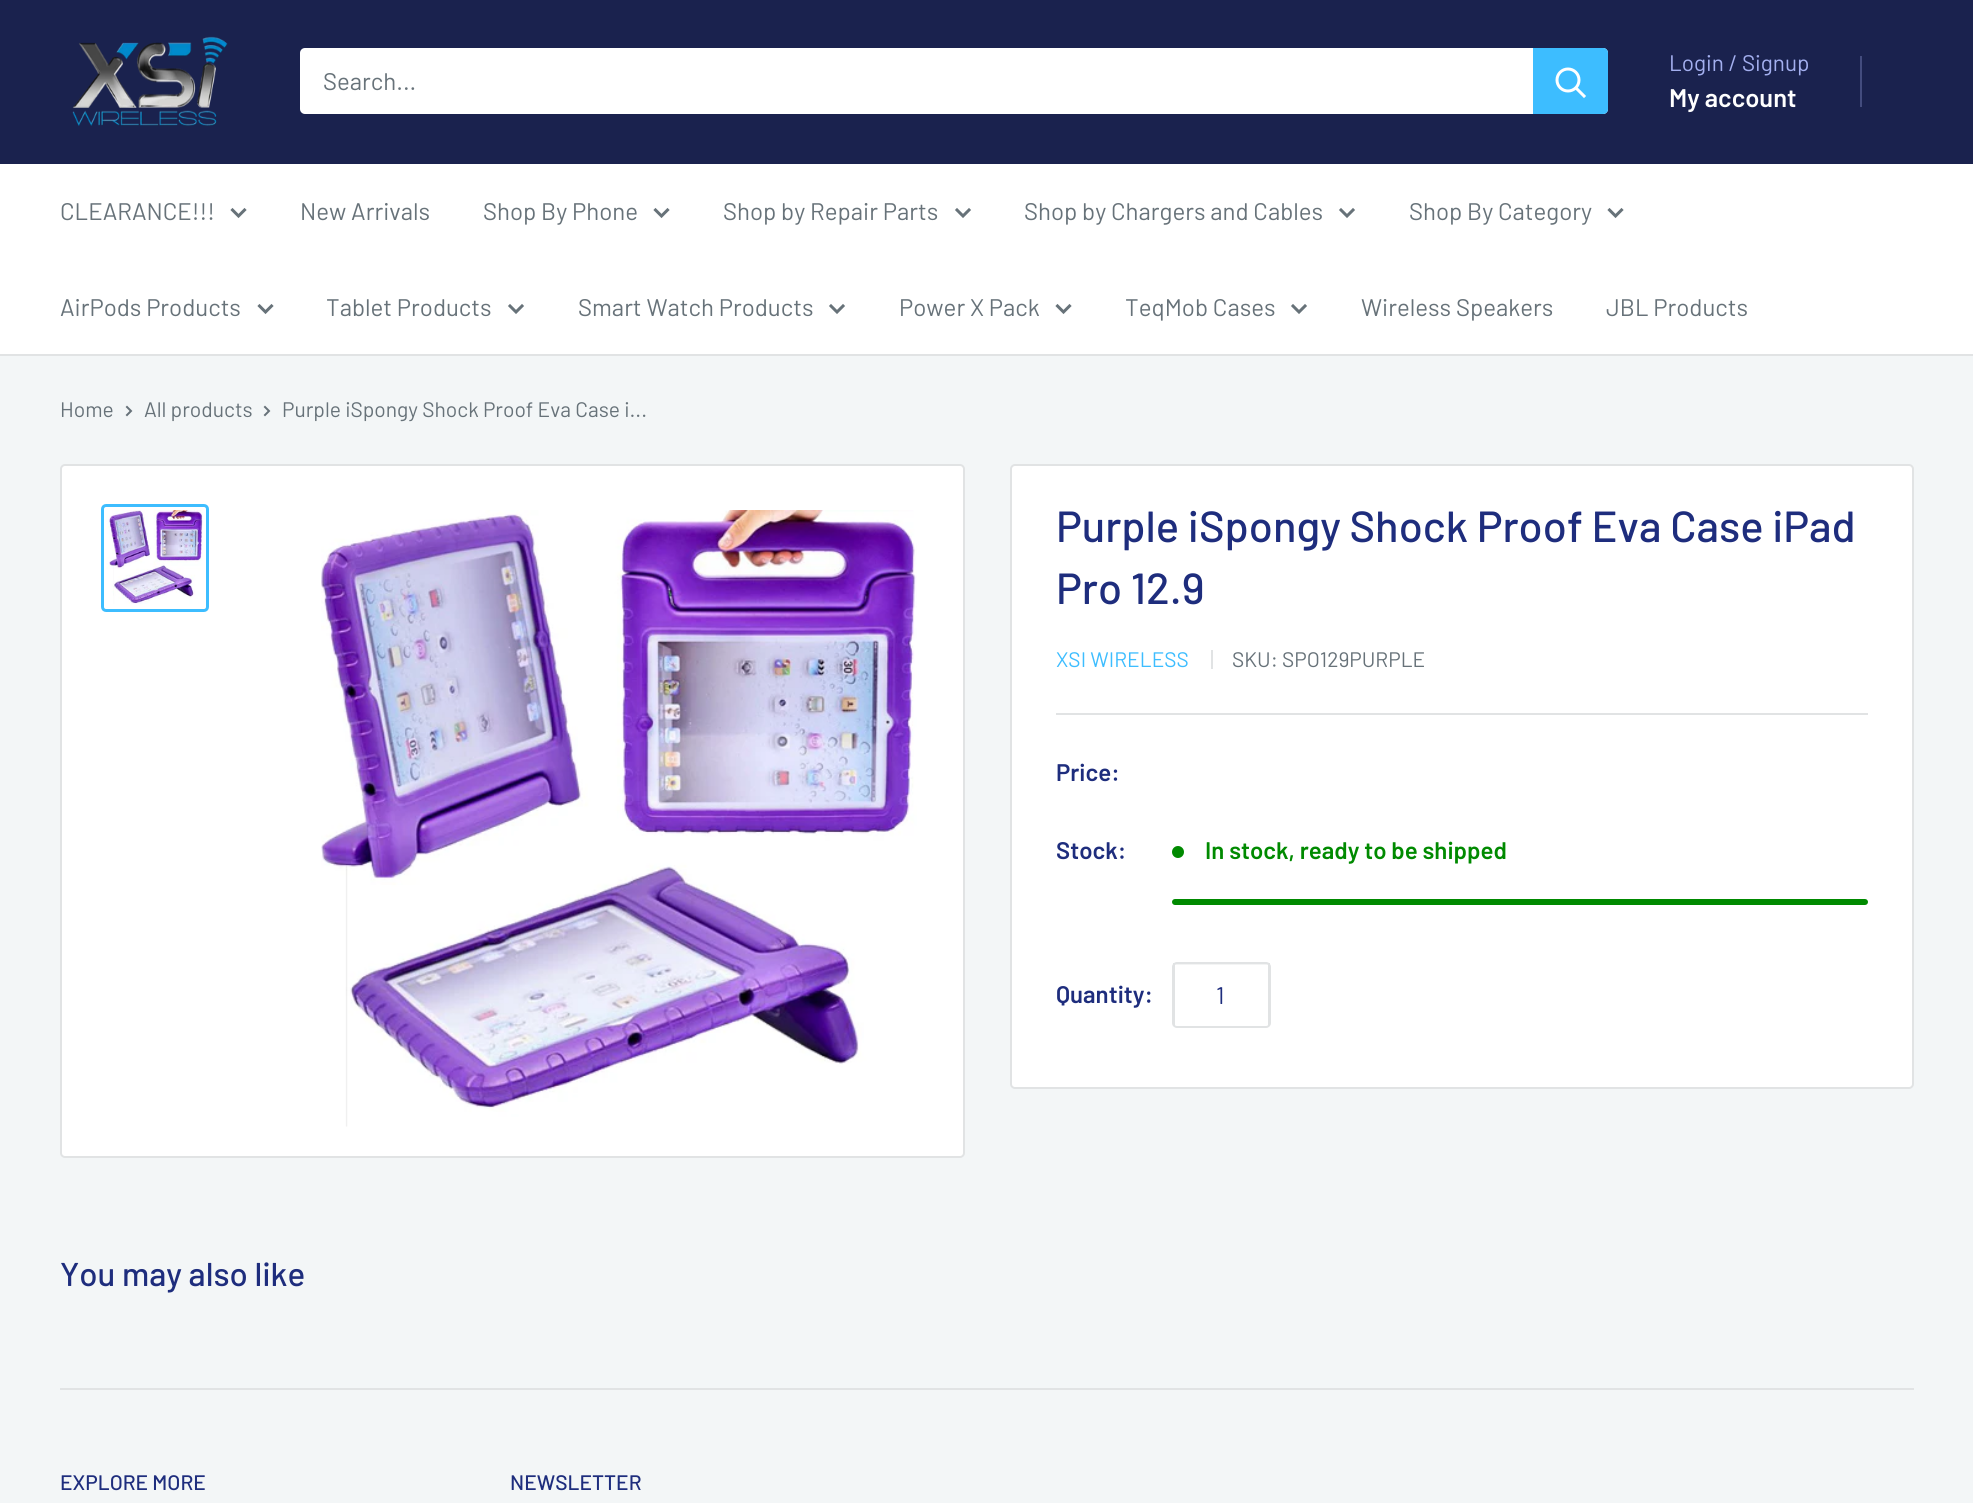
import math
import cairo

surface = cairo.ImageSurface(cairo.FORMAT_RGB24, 1973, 1503)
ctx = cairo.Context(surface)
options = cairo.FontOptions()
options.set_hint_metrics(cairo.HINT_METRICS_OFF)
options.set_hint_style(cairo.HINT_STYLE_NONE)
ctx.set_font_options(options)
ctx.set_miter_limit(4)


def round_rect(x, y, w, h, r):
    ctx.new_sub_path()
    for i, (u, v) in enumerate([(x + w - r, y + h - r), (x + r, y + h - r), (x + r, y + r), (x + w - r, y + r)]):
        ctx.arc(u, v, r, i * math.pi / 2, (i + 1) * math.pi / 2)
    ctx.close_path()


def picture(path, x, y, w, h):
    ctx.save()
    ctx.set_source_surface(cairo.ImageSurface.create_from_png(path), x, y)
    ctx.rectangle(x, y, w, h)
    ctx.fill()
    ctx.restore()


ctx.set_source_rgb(0.953, 0.961, 0.965)
ctx.paint()
ctx.set_source_rgb(0.102, 0.133, 0.306)
ctx.rectangle(0, 0, 1973, 164)
ctx.fill()
picture("img1.png", 72, 36, 156, 90)
ctx.set_source_rgb(1, 1, 1)
round_rect(300, 48, 1308, 66, 5)
ctx.fill()
ctx.select_font_face("Barlow")
ctx.set_font_size(24)
ctx.set_source_rgb(0.404, 0.447, 0.475)
ctx.move_to(323, 90)
ctx.show_text("Search...")
ctx.set_source_rgb(0.239, 0.741, 1)
ctx.new_path()
ctx.move_to(1533, 48)
ctx.line_to(1603, 48)
ctx.curve_to(1606, 48, 1608, 50, 1608, 53)
ctx.line_to(1608, 109)
ctx.curve_to(1608, 112, 1606, 114, 1603, 114)
ctx.line_to(1533, 114)
ctx.close_path()
ctx.fill()
ctx.new_path()
ctx.move_to(1584, 96)
ctx.line_to(1576.5, 88.5)
ctx.set_source_rgb(1, 1, 1)
ctx.set_line_width(3)
ctx.set_line_cap(cairo.LINE_CAP_SQUARE)
ctx.stroke()
ctx.arc(1568, 80, 11, 0, 2 * math.pi)
ctx.set_line_cap(cairo.LINE_CAP_BUTT)
ctx.stroke()
ctx.set_font_size(22.5)
ctx.set_source_rgb(0.639, 0.686, 0.937)
ctx.move_to(1669, 71)
ctx.show_text("Login / Signup")
ctx.set_source_rgb(0.263, 0.298, 0.494)
ctx.rectangle(1860, 56, 2, 51)
ctx.fill()
ctx.select_font_face("Barlow SemiBold")
ctx.set_font_size(25.5)
ctx.set_source_rgb(1, 1, 1)
ctx.move_to(1669, 107)
ctx.show_text("My account")
ctx.rectangle(0, 164, 1973, 190)
ctx.fill()
ctx.set_source_rgb(0.882, 0.89, 0.894)
ctx.rectangle(0, 354, 1973, 2)
ctx.fill()
ctx.select_font_face("Barlow")
ctx.set_font_size(24)
ctx.set_source_rgb(0.404, 0.447, 0.475)
ctx.move_to(60, 220)
ctx.show_text("CLEARANCE!!!")
ctx.new_path()
ctx.move_to(244.5, 210)
ctx.line_to(238.5, 216)
ctx.line_to(232.5, 210)
ctx.set_line_cap(cairo.LINE_CAP_SQUARE)
ctx.stroke()
ctx.move_to(300, 220)
ctx.show_text("New Arrivals")
ctx.move_to(483, 220)
ctx.show_text("Shop By Phone")
ctx.new_path()
ctx.move_to(667.5, 210)
ctx.line_to(661.5, 216)
ctx.line_to(655.5, 210)
ctx.stroke()
ctx.move_to(723, 220)
ctx.show_text("Shop by Repair Parts")
ctx.new_path()
ctx.move_to(969, 210)
ctx.line_to(963, 216)
ctx.line_to(957, 210)
ctx.stroke()
ctx.move_to(1024, 220)
ctx.show_text("Shop by Chargers and Cables")
ctx.new_path()
ctx.move_to(1353, 210)
ctx.line_to(1347, 216)
ctx.line_to(1341, 210)
ctx.stroke()
ctx.move_to(1409, 220)
ctx.show_text("Shop By Category")
ctx.new_path()
ctx.move_to(1621.5, 210)
ctx.line_to(1615.5, 216)
ctx.line_to(1609.5, 210)
ctx.stroke()
ctx.move_to(60, 316)
ctx.show_text("AirPods Products")
ctx.new_path()
ctx.move_to(271.5, 306)
ctx.line_to(265.5, 312)
ctx.line_to(259.5, 306)
ctx.stroke()
ctx.move_to(326, 316)
ctx.show_text("Tablet Products")
ctx.new_path()
ctx.move_to(522, 306)
ctx.line_to(516, 312)
ctx.line_to(510, 306)
ctx.stroke()
ctx.move_to(578, 316)
ctx.show_text("Smart Watch Products")
ctx.new_path()
ctx.move_to(843, 306)
ctx.line_to(837, 312)
ctx.line_to(831, 306)
ctx.stroke()
ctx.move_to(899, 316)
ctx.show_text("Power X Pack")
ctx.new_path()
ctx.move_to(1069.5, 306)
ctx.line_to(1063.5, 312)
ctx.line_to(1057.5, 306)
ctx.stroke()
ctx.move_to(1125, 316)
ctx.show_text("TeqMob Cases")
ctx.new_path()
ctx.move_to(1305, 306)
ctx.line_to(1299, 312)
ctx.line_to(1293, 306)
ctx.stroke()
ctx.move_to(1361, 316)
ctx.show_text("Wireless Speakers")
ctx.move_to(1606, 316)
ctx.show_text("JBL Products")
ctx.set_font_size(21)
ctx.move_to(60, 417)
ctx.show_text("Home")
ctx.new_path()
ctx.move_to(127, 407)
ctx.line_to(131, 411)
ctx.line_to(127, 415)
ctx.set_line_width(2)
ctx.stroke()
ctx.move_to(144, 417)
ctx.show_text("All products")
ctx.new_path()
ctx.move_to(265, 407)
ctx.line_to(269, 411)
ctx.line_to(265, 415)
ctx.stroke()
ctx.move_to(282, 417)
ctx.show_text("Purple iSpongy Shock Proof Eva Case i...")
ctx.set_source_rgb(1, 1, 1)
round_rect(61, 465, 903, 692, 4)
ctx.fill_preserve()
ctx.set_source_rgb(0.882, 0.89, 0.894)
ctx.set_line_cap(cairo.LINE_CAP_BUTT)
ctx.stroke()
round_rect(102.5, 505.5, 105, 105, 3.5)
ctx.set_source_rgb(0.239, 0.741, 1)
ctx.set_line_width(3)
ctx.stroke()
picture("img2.png", 106, 510, 97, 94)
picture("img3.png", 321, 510, 596, 617)
ctx.set_source_rgb(1, 1, 1)
round_rect(1011, 465, 902, 623, 4)
ctx.fill_preserve()
ctx.set_source_rgb(0.882, 0.89, 0.894)
ctx.set_line_width(2)
ctx.stroke()
ctx.select_font_face("Barlow Medium")
ctx.set_font_size(43.5)
ctx.set_source_rgb(0.118, 0.176, 0.49)
ctx.move_to(1056, 542)
ctx.show_text("Purple iSpongy Shock Proof Eva Case iPad")
ctx.move_to(1056, 604)
ctx.show_text("Pro 12.9")
ctx.select_font_face("Barlow")
ctx.set_font_size(21)
ctx.set_source_rgb(0.239, 0.741, 1)
ctx.move_to(1056, 667)
ctx.show_text("XSI WIRELESS")
ctx.set_source_rgb(0.882, 0.89, 0.894)
ctx.rectangle(1211, 650, 2, 19)
ctx.fill()
ctx.set_source_rgb(0.404, 0.447, 0.475)
ctx.move_to(1232, 667)
ctx.show_text("SKU: SPO129PURPLE")
ctx.set_source_rgb(0.882, 0.89, 0.894)
ctx.rectangle(1056, 713, 812, 2)
ctx.fill()
ctx.select_font_face("Barlow SemiBold")
ctx.set_font_size(24)
ctx.set_source_rgb(0.118, 0.176, 0.49)
ctx.move_to(1056, 781)
ctx.show_text("Price:")
ctx.move_to(1056, 859)
ctx.show_text("Stock:")
ctx.set_source_rgb(0, 0.541, 0)
ctx.new_path()
ctx.arc(1178, 852, 6, 0, 2 * math.pi)
ctx.fill()
ctx.move_to(1205, 859)
ctx.show_text("In stock, ready to be shipped")
round_rect(1172, 899, 696, 6, 3)
ctx.fill()
ctx.set_source_rgb(0.118, 0.176, 0.49)
ctx.move_to(1056, 1003)
ctx.show_text("Quantity:")
round_rect(1173, 963, 97, 64, 4)
ctx.set_source_rgb(0.882, 0.89, 0.894)
ctx.stroke()
ctx.set_source_rgba(0.882, 0.89, 0.894, 0.4)
ctx.rectangle(1175, 964, 93, 1)
ctx.fill()
ctx.set_source_rgb(0.882, 0.89, 0.894)
ctx.rectangle(1268, 963, 2, 63)
ctx.fill()
ctx.rectangle(1173, 963, 2, 63)
ctx.fill()
ctx.select_font_face("Barlow")
ctx.set_source_rgb(0.118, 0.176, 0.49)
ctx.move_to(1216, 1004)
ctx.show_text("1")
ctx.select_font_face("Barlow Medium")
ctx.set_font_size(33)
ctx.move_to(60, 1286)
ctx.show_text("You may also like")
ctx.set_source_rgb(0.882, 0.89, 0.894)
ctx.rectangle(60, 1388, 1854, 2)
ctx.fill()
ctx.set_font_size(21)
ctx.set_source_rgb(0.118, 0.176, 0.49)
ctx.move_to(60, 1490)
ctx.show_text("EXPLORE MORE")
ctx.move_to(510, 1490)
ctx.show_text("NEWSLETTER")
surface.write_to_png("page.png")
